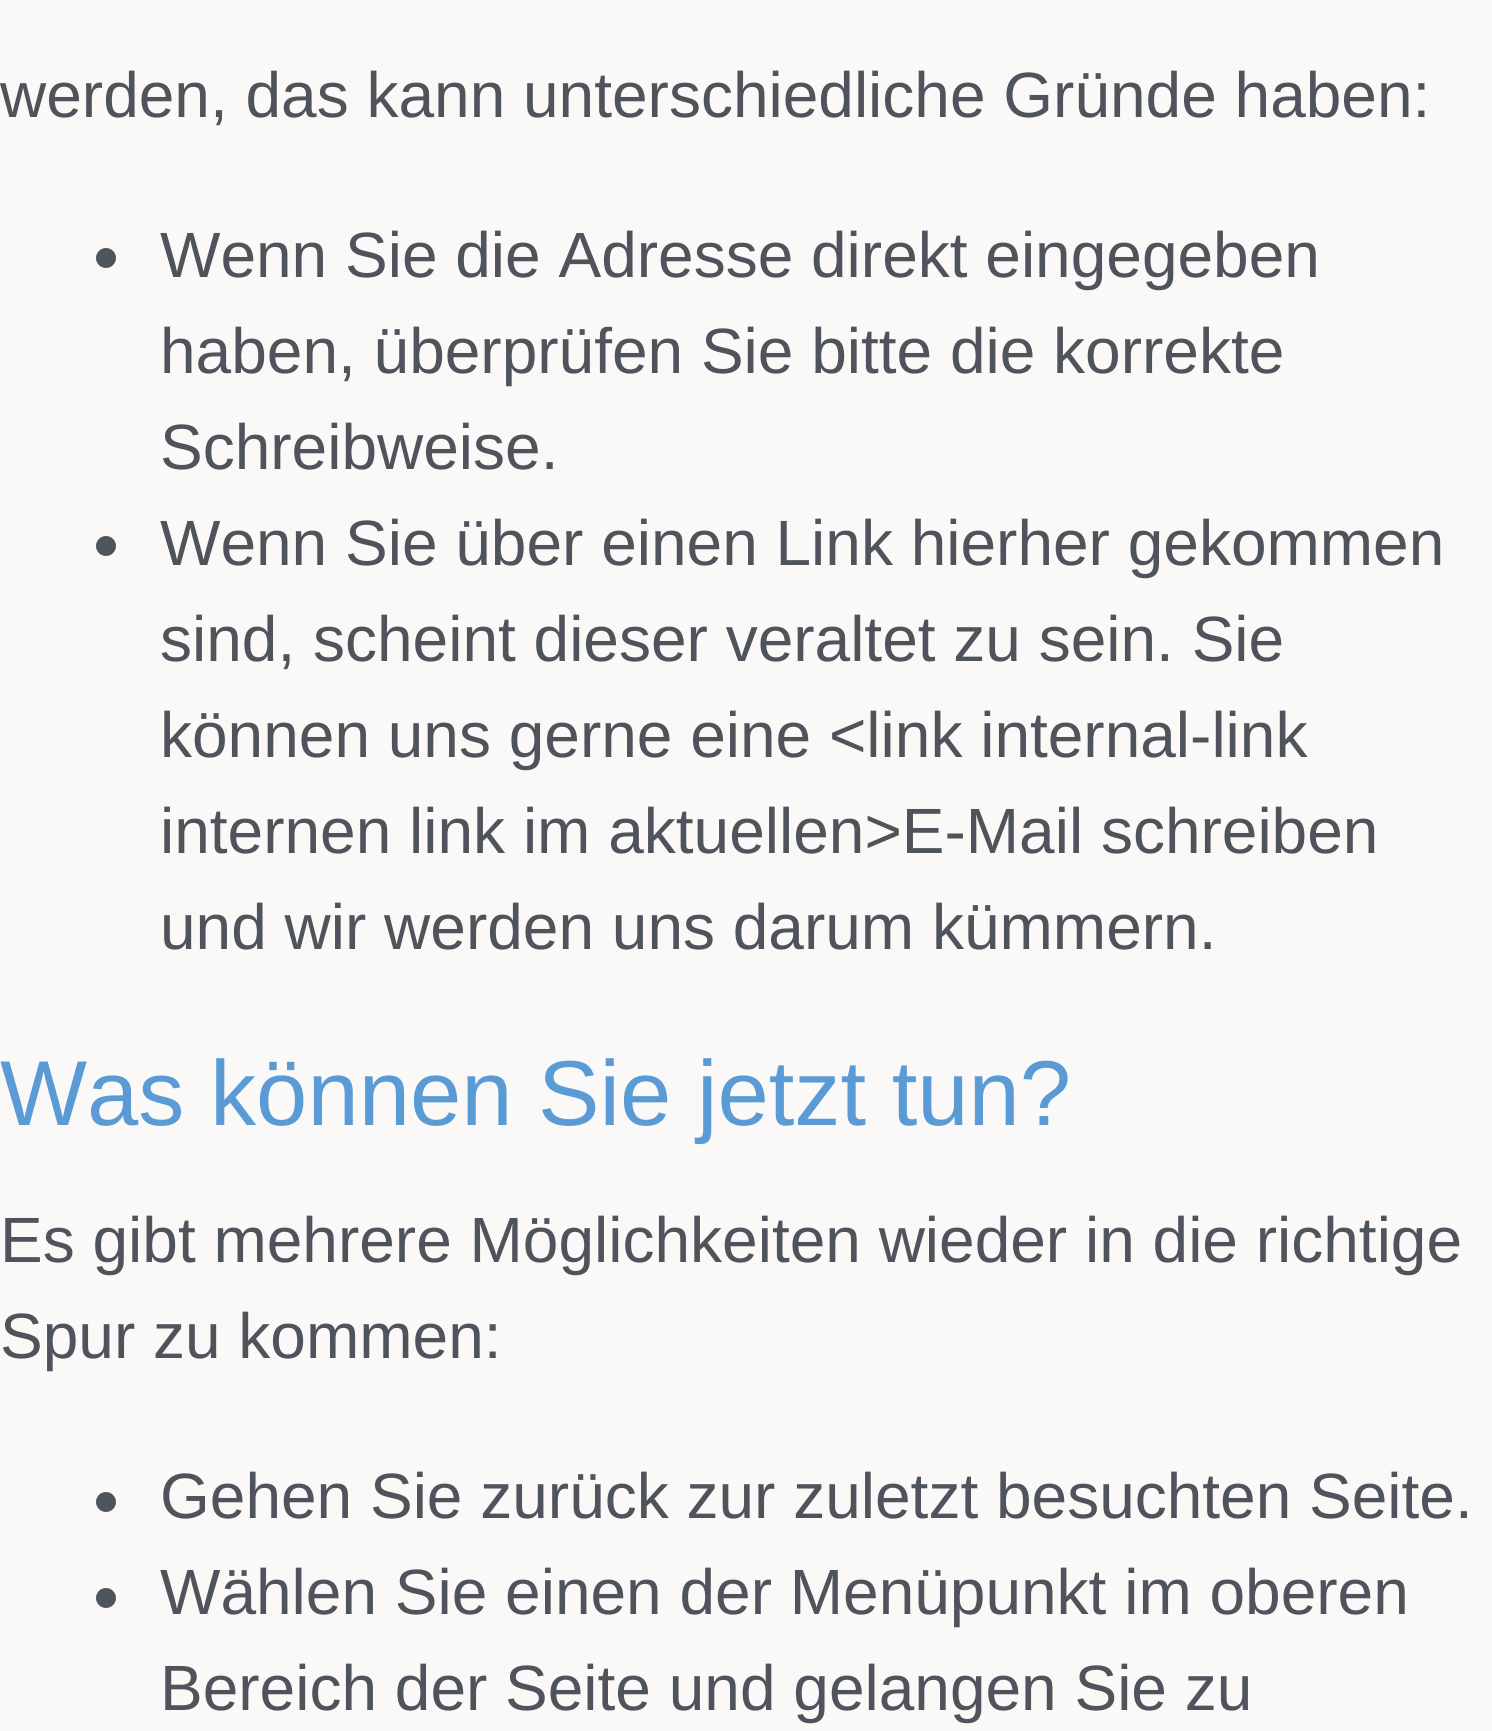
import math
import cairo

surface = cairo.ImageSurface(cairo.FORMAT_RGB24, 1492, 1731)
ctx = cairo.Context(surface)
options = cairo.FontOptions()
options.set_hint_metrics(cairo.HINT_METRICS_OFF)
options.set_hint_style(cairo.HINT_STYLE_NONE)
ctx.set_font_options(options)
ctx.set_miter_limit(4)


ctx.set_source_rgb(0.98, 0.976, 0.969)
ctx.paint()
ctx.select_font_face("Liberation Sans")
ctx.set_font_size(64)
ctx.set_source_rgb(0.31, 0.329, 0.361)
ctx.move_to(0, 117)
ctx.show_text("werden, das kann unterschiedliche Gründe haben:")
ctx.new_path()
ctx.arc(106, 258, 10, 0, 2 * math.pi)
ctx.fill()
ctx.move_to(160, 277)
ctx.show_text("Wenn Sie die Adresse direkt eingegeben")
ctx.move_to(160, 373)
ctx.show_text("haben, überprüfen Sie bitte die korrekte")
ctx.move_to(160, 469)
ctx.show_text("Schreibweise.")
ctx.new_path()
ctx.arc(106, 546, 10, 0, 2 * math.pi)
ctx.fill()
ctx.move_to(160, 565)
ctx.show_text("Wenn Sie über einen Link hierher gekommen")
ctx.move_to(160, 661)
ctx.show_text("sind, scheint dieser veraltet zu sein. Sie")
ctx.move_to(160, 757)
ctx.show_text("können uns gerne eine <link internal-link")
ctx.move_to(160, 853)
ctx.show_text("internen link im aktuellen>E-Mail schreiben")
ctx.move_to(160, 949)
ctx.show_text("und wir werden uns darum kümmern.")
ctx.set_font_size(92.2)
ctx.set_source_rgb(0.357, 0.608, 0.835)
ctx.move_to(0, 1125)
ctx.show_text("Was können Sie jetzt tun?")
ctx.set_font_size(64)
ctx.set_source_rgb(0.31, 0.329, 0.361)
ctx.move_to(0, 1262)
ctx.show_text("Es gibt mehrere Möglichkeiten wieder in die richtige")
ctx.move_to(0, 1358)
ctx.show_text("Spur zu kommen:")
ctx.new_path()
ctx.arc(106, 1502, 10, 0, 2 * math.pi)
ctx.fill()
ctx.move_to(160, 1518)
ctx.show_text("Gehen Sie zurück zur zuletzt besuchten Seite.")
ctx.new_path()
ctx.arc(106, 1598, 10, 0, 2 * math.pi)
ctx.fill()
ctx.move_to(160, 1614)
ctx.show_text("Wählen Sie einen der Menüpunkt im oberen")
ctx.move_to(160, 1710)
ctx.show_text("Bereich der Seite und gelangen Sie zu")
surface.write_to_png("page.png")
